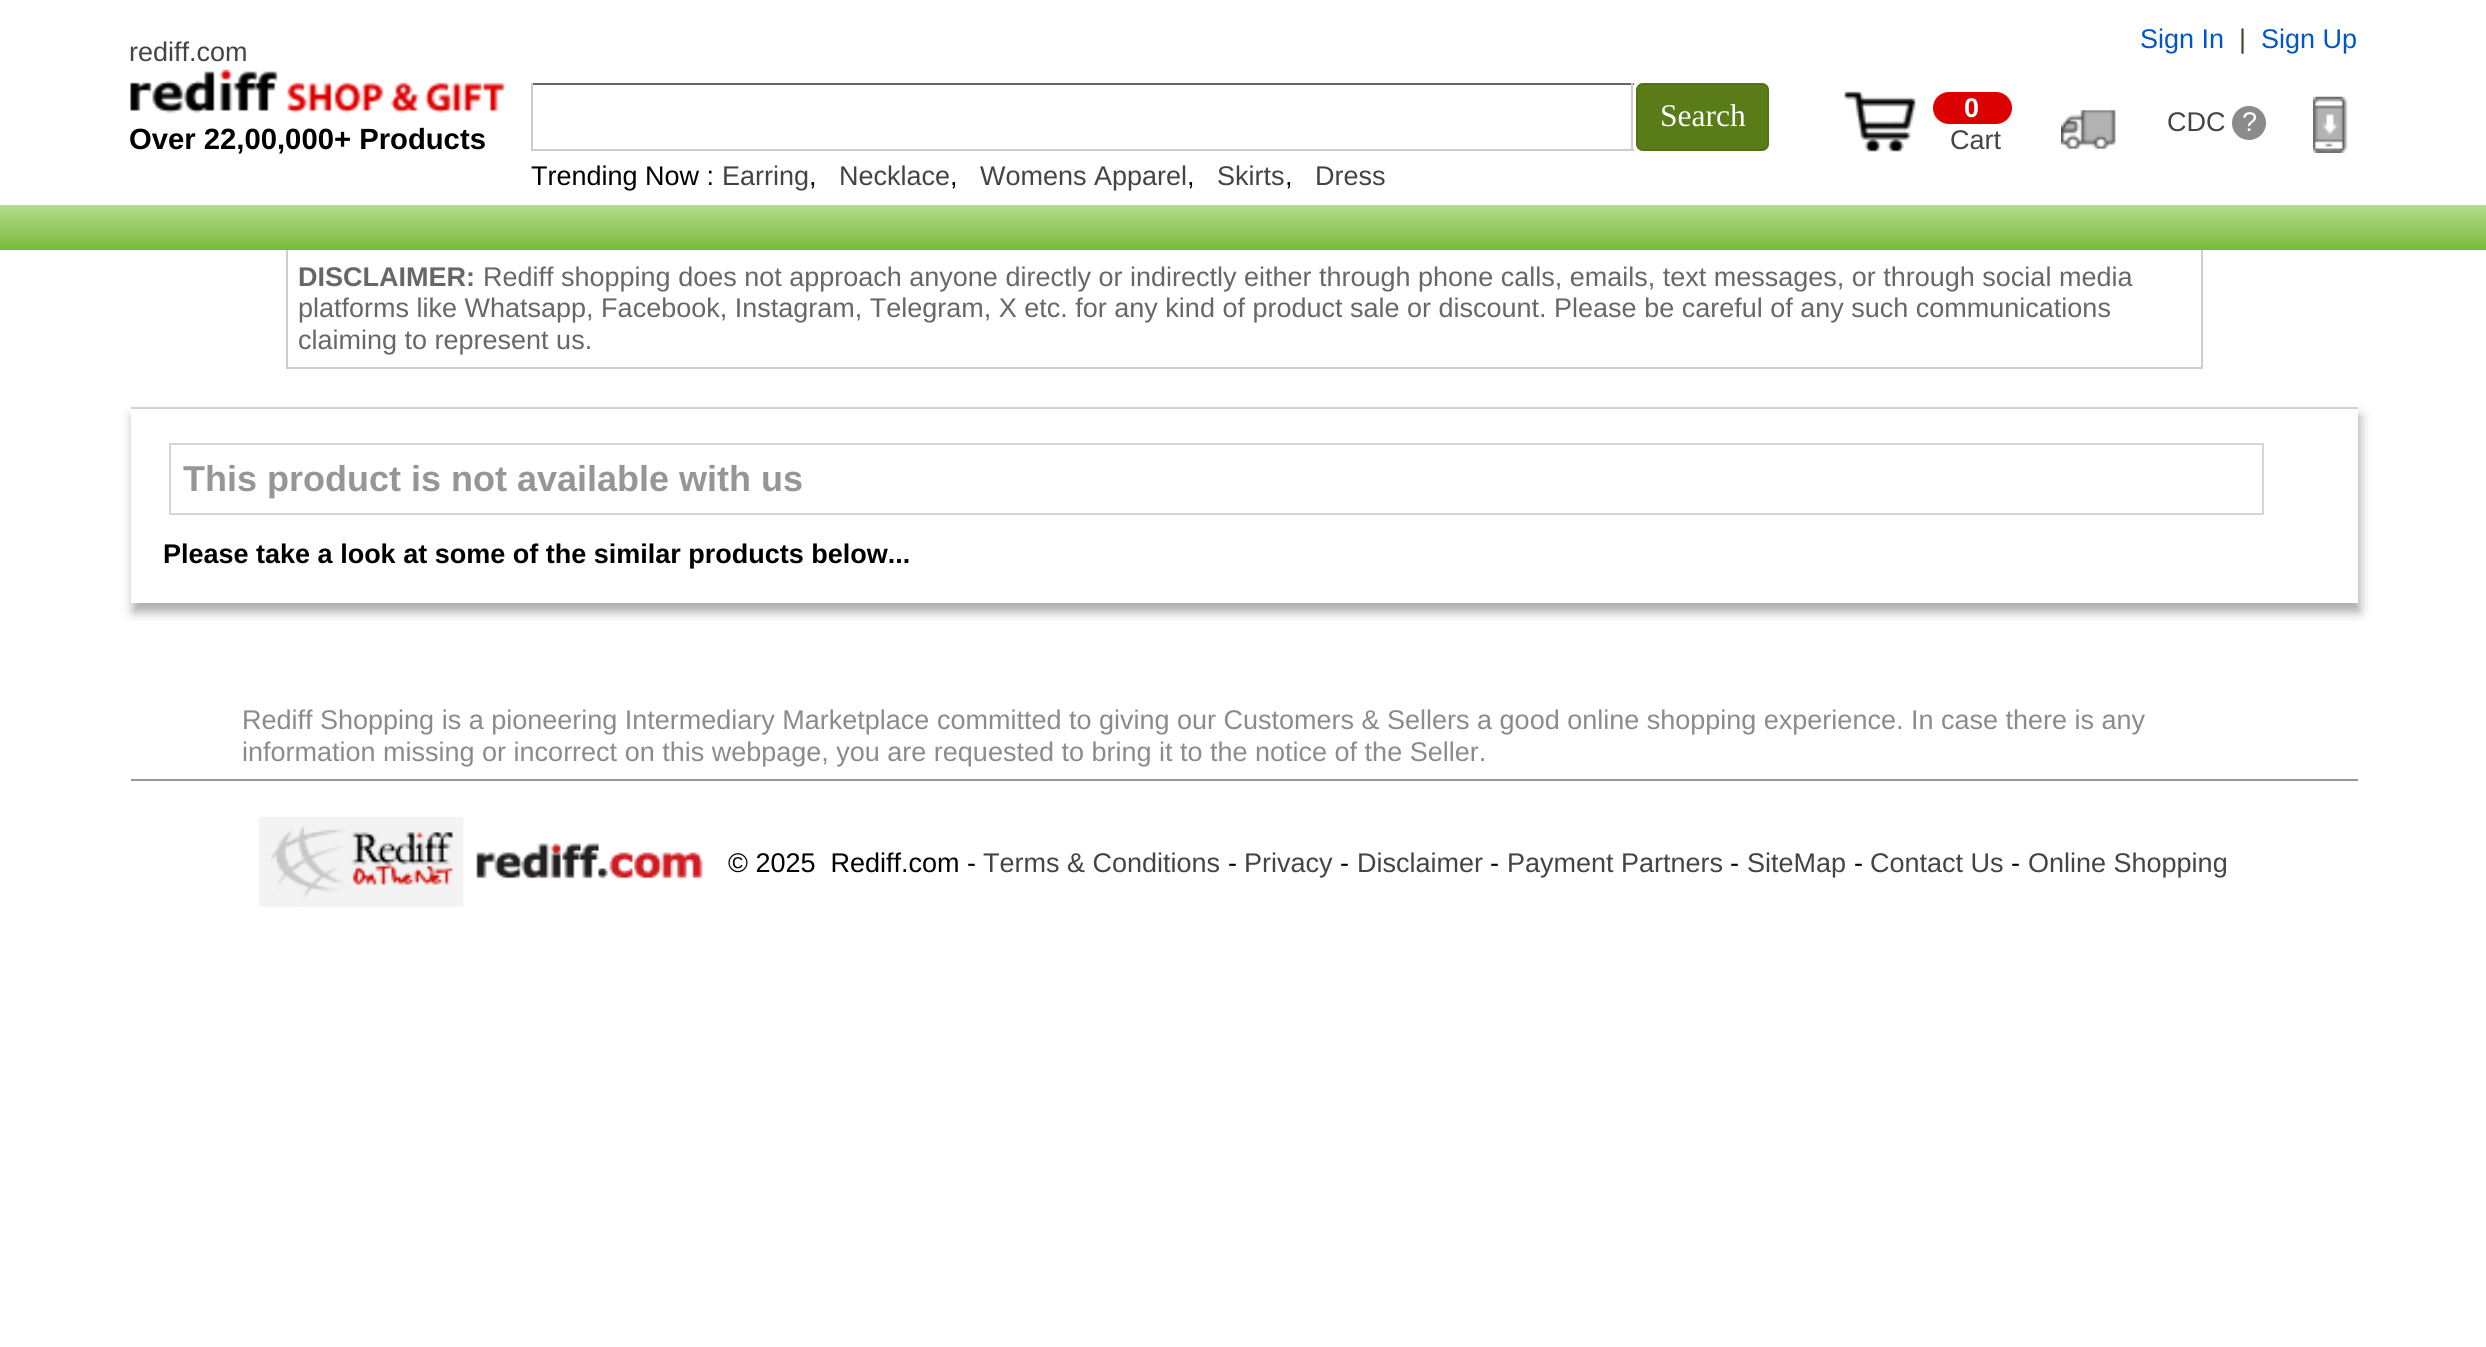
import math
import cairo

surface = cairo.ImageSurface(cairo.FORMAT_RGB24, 2486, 1347)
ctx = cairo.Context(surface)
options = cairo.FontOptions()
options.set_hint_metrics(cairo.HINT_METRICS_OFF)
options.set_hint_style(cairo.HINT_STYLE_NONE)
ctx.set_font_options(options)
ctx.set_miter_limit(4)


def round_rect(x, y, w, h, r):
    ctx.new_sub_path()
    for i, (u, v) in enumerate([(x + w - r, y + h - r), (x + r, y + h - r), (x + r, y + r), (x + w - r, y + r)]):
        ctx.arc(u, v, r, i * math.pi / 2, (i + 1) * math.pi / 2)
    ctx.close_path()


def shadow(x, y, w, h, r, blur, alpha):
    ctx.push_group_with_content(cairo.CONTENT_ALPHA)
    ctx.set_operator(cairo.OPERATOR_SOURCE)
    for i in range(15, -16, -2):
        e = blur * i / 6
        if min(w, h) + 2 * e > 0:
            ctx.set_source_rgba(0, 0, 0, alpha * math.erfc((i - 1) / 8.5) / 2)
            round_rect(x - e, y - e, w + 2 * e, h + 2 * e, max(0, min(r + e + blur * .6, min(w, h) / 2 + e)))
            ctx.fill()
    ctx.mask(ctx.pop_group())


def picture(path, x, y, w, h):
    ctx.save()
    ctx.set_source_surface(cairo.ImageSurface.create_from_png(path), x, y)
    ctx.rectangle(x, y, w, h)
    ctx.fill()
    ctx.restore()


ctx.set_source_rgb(1, 1, 1)
ctx.paint()
ctx.select_font_face("Liberation Sans")
ctx.set_font_size(27)
ctx.set_source_rgb(0.267, 0.267, 0.267)
ctx.move_to(129, 61)
ctx.show_text("rediff.com")
ctx.set_source_rgb(0, 0.333, 0.8)
ctx.move_to(2140, 48)
ctx.show_text("Sign In")
ctx.set_source_rgb(0.29, 0.275, 0.176)
ctx.move_to(2239, 48)
ctx.show_text("|")
ctx.set_source_rgb(0, 0.333, 0.8)
ctx.move_to(2261, 48)
ctx.show_text("Sign Up")
picture("img1.png", 130, 69, 375, 45)
ctx.select_font_face("Liberation Sans", cairo.FONT_SLANT_NORMAL, cairo.FONT_WEIGHT_BOLD)
ctx.set_font_size(29.25)
ctx.set_source_rgb(0, 0, 0)
ctx.move_to(129, 149)
ctx.show_text("Over 22,00,000+ Products")
ctx.set_source_rgb(0.396, 0.396, 0.396)
ctx.rectangle(531, 83, 1103, 2)
ctx.fill()
ctx.set_source_rgb(0.8, 0.8, 0.8)
ctx.rectangle(1631, 83, 2, 68)
ctx.fill()
ctx.rectangle(531, 149, 1103, 2)
ctx.fill()
ctx.rectangle(531, 83, 2, 68)
ctx.fill()
ctx.set_source_rgb(0.349, 0.486, 0.094)
round_rect(1637, 84, 131, 66, 6)
ctx.fill_preserve()
ctx.set_source_rgb(0.318, 0.455, 0.063)
ctx.stroke()
ctx.select_font_face("Liberation Serif")
ctx.set_font_size(31.5)
ctx.set_source_rgb(1, 1, 1)
ctx.move_to(1660, 126)
ctx.show_text("Search")
ctx.select_font_face("Liberation Sans")
ctx.set_font_size(27)
ctx.set_source_rgb(0, 0, 0)
ctx.move_to(531, 185)
ctx.show_text("Trending Now :")
ctx.set_source_rgb(0.267, 0.267, 0.267)
ctx.move_to(722, 185)
ctx.show_text("Earring")
ctx.set_source_rgb(0, 0, 0)
ctx.move_to(809, 185)
ctx.show_text(",")
ctx.set_source_rgb(0.267, 0.267, 0.267)
ctx.move_to(839, 185)
ctx.show_text("Necklace")
ctx.set_source_rgb(0, 0, 0)
ctx.move_to(950, 185)
ctx.show_text(",")
ctx.set_source_rgb(0.267, 0.267, 0.267)
ctx.move_to(980, 185)
ctx.show_text("Womens Apparel")
ctx.set_source_rgb(0, 0, 0)
ctx.move_to(1187, 185)
ctx.show_text(",")
ctx.set_source_rgb(0.267, 0.267, 0.267)
ctx.move_to(1217, 185)
ctx.show_text("Skirts")
ctx.set_source_rgb(0, 0, 0)
ctx.move_to(1285, 185)
ctx.show_text(",")
ctx.set_source_rgb(0.267, 0.267, 0.267)
ctx.move_to(1315, 185)
ctx.show_text("Dress")
picture("img2.png", 1844, 91, 72, 61)
ctx.set_source_rgb(0.863, 0, 0)
round_rect(1933, 92, 79, 32, 16)
ctx.fill()
ctx.select_font_face("Liberation Sans", cairo.FONT_SLANT_NORMAL, cairo.FONT_WEIGHT_BOLD)
ctx.set_source_rgb(1, 1, 1)
ctx.move_to(1964, 117)
ctx.show_text("0")
ctx.select_font_face("Liberation Sans")
ctx.set_source_rgb(0.267, 0.267, 0.267)
ctx.move_to(1950, 149)
ctx.show_text("Cart")
picture("img3.png", 2061, 110, 55, 40)
ctx.move_to(2167, 131)
ctx.show_text("CDC")
ctx.set_source_rgb(0.545, 0.545, 0.545)
ctx.new_path()
ctx.arc(2249, 123, 17, 0, 2 * math.pi)
ctx.fill()
ctx.set_source_rgb(1, 1, 1)
ctx.move_to(2242, 131)
ctx.show_text("?")
picture("img4.png", 2313, 96, 35, 57)
ctx.rectangle(287, 249, 1915, 119)
ctx.set_source_rgb(0.808, 0.808, 0.808)
ctx.stroke()
gradient = cairo.LinearGradient(1243, 205, 1243, 250)
gradient.add_color_stop_rgba(0, 0.71, 0.863, 0.553, 1)
gradient.add_color_stop_rgba(1, 0.475, 0.729, 0.227, 1)
ctx.set_source(gradient)
ctx.rectangle(0, 205, 2486, 45)
ctx.fill()
ctx.select_font_face("Liberation Sans", cairo.FONT_SLANT_NORMAL, cairo.FONT_WEIGHT_BOLD)
ctx.set_source_rgb(0.404, 0.404, 0.404)
ctx.move_to(298, 286)
ctx.show_text("DISCLAIMER:")
ctx.select_font_face("Liberation Sans")
ctx.move_to(483, 286)
ctx.show_text("Rediff shopping does not approach anyone directly or indirectly either through phone calls, emails, text messages, or through social media")
ctx.move_to(298, 317)
ctx.show_text("platforms like Whatsapp, Facebook, Instagram, Telegram, X etc. for any kind of product sale or discount. Please be careful of any such communications")
ctx.move_to(298, 349)
ctx.show_text("claiming to represent us.")
ctx.save()
ctx.set_fill_rule(cairo.FILL_RULE_EVEN_ODD)
ctx.new_path()
ctx.move_to(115, 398)
ctx.line_to(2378, 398)
ctx.line_to(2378, 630)
ctx.line_to(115, 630)
ctx.close_path()
ctx.move_to(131, 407)
ctx.line_to(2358, 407)
ctx.line_to(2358, 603)
ctx.line_to(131, 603)
ctx.close_path()
ctx.clip()
ctx.set_source_rgb(0.667, 0.667, 0.667)
shadow(133, 416, 2227, 196, 0, 5.5, 1)
ctx.restore()
ctx.set_source_rgb(0.824, 0.824, 0.824)
ctx.rectangle(131, 407, 2227, 2)
ctx.fill()
ctx.rectangle(170, 444, 2093, 70)
ctx.set_source_rgb(0.835, 0.835, 0.835)
ctx.stroke()
ctx.select_font_face("Liberation Sans", cairo.FONT_SLANT_NORMAL, cairo.FONT_WEIGHT_BOLD)
ctx.set_font_size(36)
ctx.set_source_rgb(0.588, 0.588, 0.588)
ctx.move_to(183, 491)
ctx.show_text("This product is not available with us")
ctx.set_font_size(27)
ctx.set_source_rgb(0, 0, 0)
ctx.move_to(163, 563)
ctx.show_text("Please take a look at some of the similar products below...")
ctx.select_font_face("Liberation Sans")
ctx.set_source_rgb(0.545, 0.545, 0.545)
ctx.move_to(242, 729)
ctx.show_text("Rediff Shopping is a pioneering Intermediary Marketplace committed to giving our Customers & Sellers a good online shopping experience. In case there is any")
ctx.move_to(242, 761)
ctx.show_text("information missing or incorrect on this webpage, you are requested to bring it to the notice of the Seller.")
ctx.set_source_rgb(0.592, 0.592, 0.592)
ctx.rectangle(131, 779, 2227, 2)
ctx.fill()
picture("img5.png", 259, 817, 444, 90)
ctx.set_source_rgb(0, 0, 0)
ctx.move_to(728, 872)
ctx.show_text("© 2025  Rediff.com -")
ctx.set_source_rgb(0.267, 0.267, 0.267)
ctx.move_to(983, 872)
ctx.show_text("Terms & Conditions")
ctx.set_source_rgb(0, 0, 0)
ctx.move_to(1228, 872)
ctx.show_text("-")
ctx.set_source_rgb(0.267, 0.267, 0.267)
ctx.move_to(1244, 872)
ctx.show_text("Privacy")
ctx.set_source_rgb(0, 0, 0)
ctx.move_to(1340, 872)
ctx.show_text("-")
ctx.set_source_rgb(0.267, 0.267, 0.267)
ctx.move_to(1357, 872)
ctx.show_text("Disclaimer")
ctx.set_source_rgb(0, 0, 0)
ctx.move_to(1490, 872)
ctx.show_text("-")
ctx.set_source_rgb(0.267, 0.267, 0.267)
ctx.move_to(1507, 872)
ctx.show_text("Payment Partners")
ctx.set_source_rgb(0, 0, 0)
ctx.move_to(1730, 872)
ctx.show_text("-")
ctx.set_source_rgb(0.267, 0.267, 0.267)
ctx.move_to(1747, 872)
ctx.show_text("SiteMap")
ctx.set_source_rgb(0, 0, 0)
ctx.move_to(1854, 872)
ctx.show_text("-")
ctx.set_source_rgb(0.267, 0.267, 0.267)
ctx.move_to(1870, 872)
ctx.show_text("Contact Us")
ctx.set_source_rgb(0, 0, 0)
ctx.move_to(2011, 872)
ctx.show_text("-")
ctx.set_source_rgb(0.267, 0.267, 0.267)
ctx.move_to(2028, 872)
ctx.show_text("Online Shopping")
surface.write_to_png("page.png")
